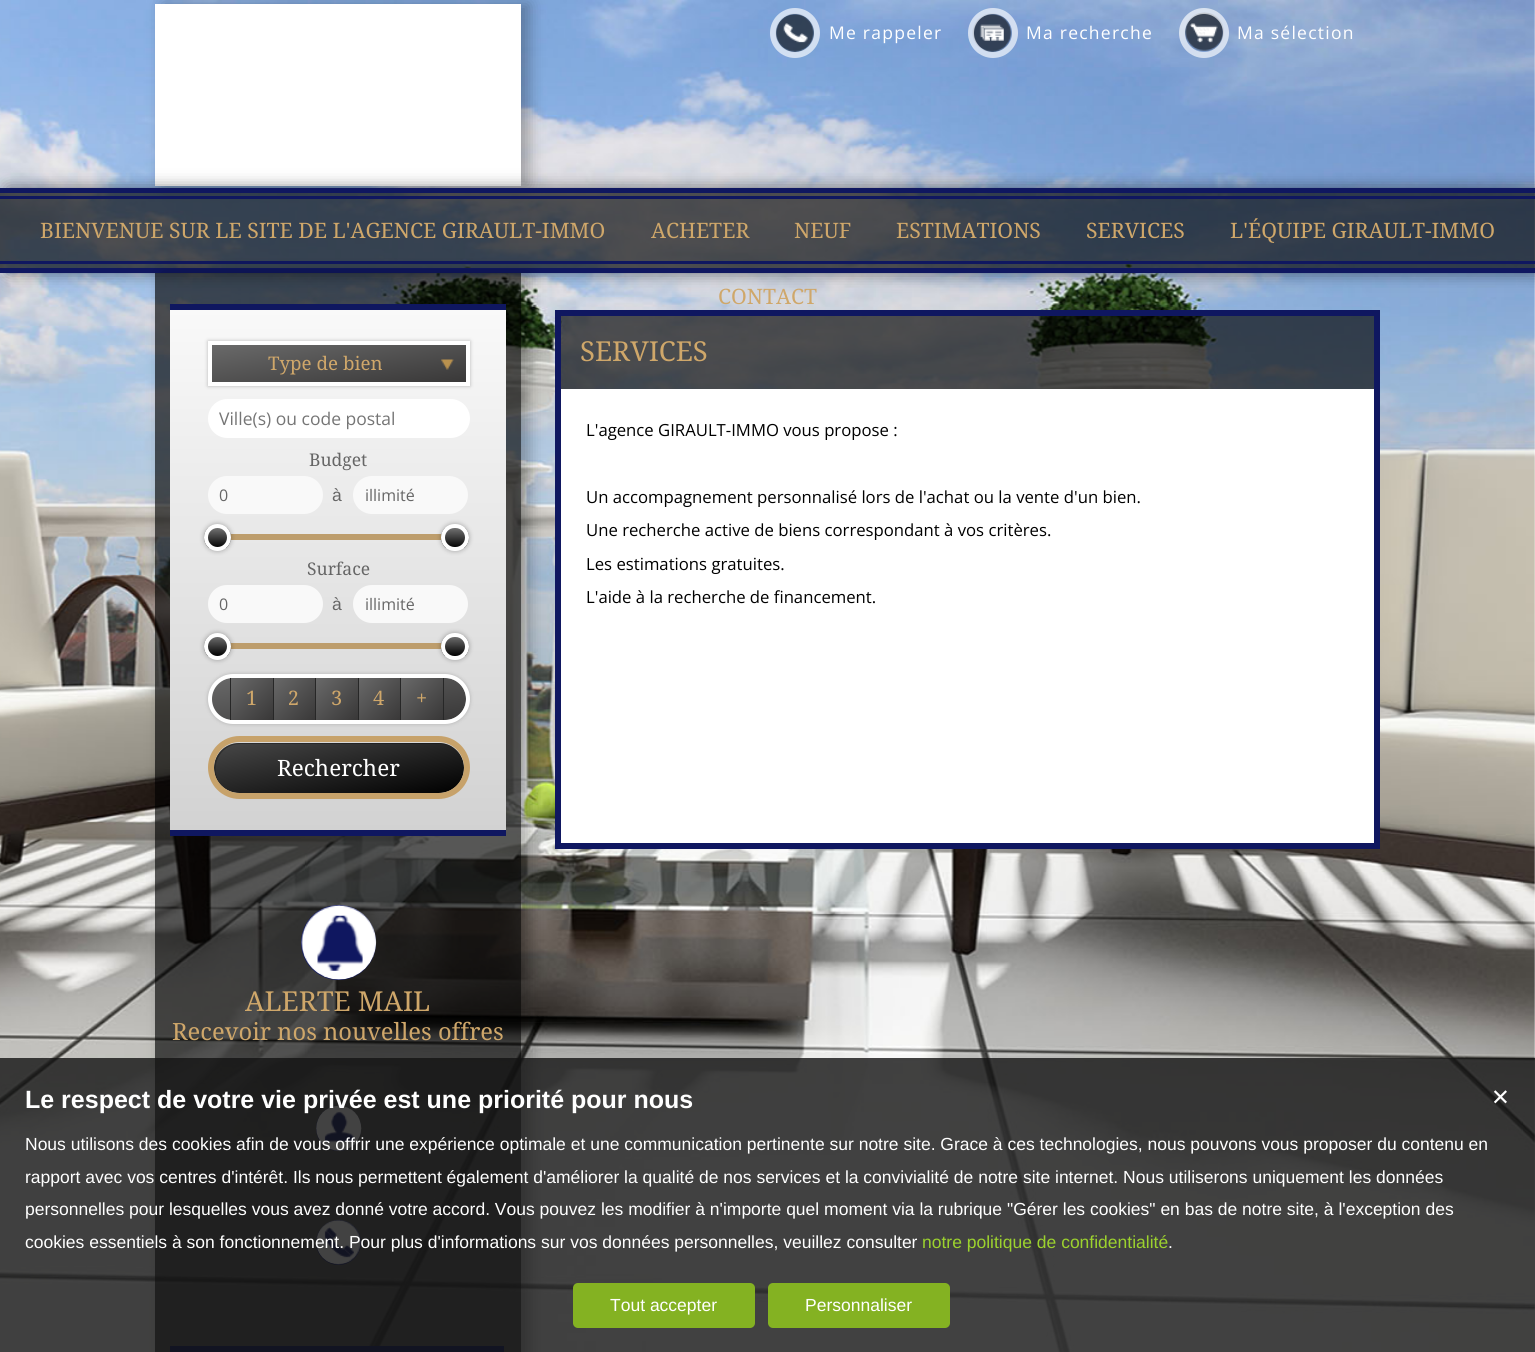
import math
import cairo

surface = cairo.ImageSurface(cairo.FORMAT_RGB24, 1535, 1352)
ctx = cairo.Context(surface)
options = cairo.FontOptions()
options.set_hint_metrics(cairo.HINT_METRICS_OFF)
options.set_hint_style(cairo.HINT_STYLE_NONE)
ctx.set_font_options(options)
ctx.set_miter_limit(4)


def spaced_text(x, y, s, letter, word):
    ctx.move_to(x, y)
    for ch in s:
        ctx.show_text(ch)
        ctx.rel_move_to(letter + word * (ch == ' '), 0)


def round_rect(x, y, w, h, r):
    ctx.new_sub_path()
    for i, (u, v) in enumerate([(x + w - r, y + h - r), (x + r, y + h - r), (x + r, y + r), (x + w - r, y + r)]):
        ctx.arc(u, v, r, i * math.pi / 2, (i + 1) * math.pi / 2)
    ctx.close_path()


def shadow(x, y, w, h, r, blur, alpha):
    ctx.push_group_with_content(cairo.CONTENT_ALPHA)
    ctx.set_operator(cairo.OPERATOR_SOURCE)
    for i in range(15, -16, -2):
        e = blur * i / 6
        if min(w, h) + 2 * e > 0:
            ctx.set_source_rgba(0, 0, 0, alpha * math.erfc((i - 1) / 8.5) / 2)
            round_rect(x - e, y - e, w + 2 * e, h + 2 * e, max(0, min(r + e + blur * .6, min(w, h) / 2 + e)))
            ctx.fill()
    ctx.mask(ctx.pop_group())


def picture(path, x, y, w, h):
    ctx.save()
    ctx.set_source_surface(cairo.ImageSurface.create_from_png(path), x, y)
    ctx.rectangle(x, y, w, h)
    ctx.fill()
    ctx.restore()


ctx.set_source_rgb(1, 1, 1)
ctx.paint()
picture("img1.png", 0, 0, 1535, 1352)
ctx.set_source_rgb(0, 0, 0)
shadow(163, 4, 366, 182, 0, 8, 0.3)
ctx.set_source_rgb(1, 1, 1)
ctx.rectangle(155, 4, 366, 182)
ctx.fill()
picture("img2.png", 775, 13, 39, 40)
ctx.arc(795, 33, 22, 0, 2 * math.pi)
ctx.set_source_rgba(1, 1, 1, 0.65)
ctx.set_line_width(6)
ctx.stroke()
ctx.select_font_face("Open Sans")
ctx.set_font_size(17.5)
ctx.set_source_rgb(1, 1, 1)
spaced_text(829, 39, "Me rappeler", 1.25, 0)
picture("img3.png", 972, 13, 40, 40)
ctx.arc(993, 33, 22, 0, 2 * math.pi)
ctx.set_source_rgba(1, 1, 1, 0.65)
ctx.stroke()
ctx.set_source_rgb(1, 1, 1)
spaced_text(1026, 39, "Ma recherche", 1.25, 0)
picture("img4.png", 1184, 12, 40, 39)
ctx.arc(1204, 33, 22, 0, 2 * math.pi)
ctx.set_source_rgba(1, 1, 1, 0.65)
ctx.stroke()
ctx.set_source_rgb(1, 1, 1)
spaced_text(1237, 39, "Ma sélection", 1.25, 0)
ctx.save()
ctx.set_fill_rule(cairo.FILL_RULE_EVEN_ODD)
ctx.new_path()
ctx.move_to(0, 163)
ctx.line_to(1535, 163)
ctx.line_to(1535, 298)
ctx.line_to(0, 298)
ctx.close_path()
ctx.move_to(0, 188)
ctx.line_to(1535, 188)
ctx.line_to(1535, 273)
ctx.line_to(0, 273)
ctx.close_path()
ctx.clip()
ctx.set_source_rgb(0, 0, 0)
shadow(8, 188, 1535, 85, 0, 8, 0.5)
ctx.restore()
ctx.set_source_rgba(0, 0, 0, 0.65)
ctx.rectangle(0, 193, 1535, 75)
ctx.fill()
ctx.set_source_rgb(0.059, 0.09, 0.376)
ctx.rectangle(0, 188, 1535, 5)
ctx.fill()
ctx.rectangle(0, 196, 1535, 3)
ctx.fill()
ctx.select_font_face("Droid Serif")
ctx.set_font_size(21.25)
ctx.set_source_rgb(0.812, 0.655, 0.416)
ctx.move_to(40, 238)
ctx.show_text("BIENVENUE SUR LE SITE DE L'AGENCE GIRAULT-IMMO")
ctx.move_to(651, 238)
ctx.show_text("ACHETER")
ctx.move_to(794, 238)
ctx.show_text("NEUF")
ctx.move_to(896, 238)
ctx.show_text("ESTIMATIONS")
ctx.move_to(1086, 238)
ctx.show_text("SERVICES")
ctx.move_to(1230, 238)
ctx.show_text("L'ÉQUIPE GIRAULT-IMMO")
ctx.move_to(718, 304)
ctx.show_text("CONTACT")
ctx.set_source_rgb(0.059, 0.09, 0.376)
ctx.rectangle(0, 261, 1535, 3)
ctx.fill()
ctx.rectangle(0, 268, 1535, 5)
ctx.fill()
ctx.save()
ctx.set_fill_rule(cairo.FILL_RULE_EVEN_ODD)
ctx.new_path()
ctx.move_to(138, 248)
ctx.line_to(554, 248)
ctx.line_to(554, 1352)
ctx.line_to(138, 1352)
ctx.close_path()
ctx.move_to(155, 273)
ctx.line_to(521, 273)
ctx.line_to(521, 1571)
ctx.line_to(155, 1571)
ctx.close_path()
ctx.clip()
ctx.set_source_rgb(0, 0, 0)
shadow(163, 273, 366, 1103, 0, 8, 0.3)
ctx.restore()
ctx.set_source_rgba(0, 0, 0, 0.65)
ctx.rectangle(155, 273, 366, 1079)
ctx.fill()
gradient = cairo.LinearGradient(338, 310, 338, 830)
gradient.add_color_stop_rgba(0, 0.976, 0.976, 0.976, 1)
gradient.add_color_stop_rgba(1, 0.824, 0.824, 0.824, 1)
ctx.set_source(gradient)
ctx.rectangle(170, 310, 336, 520)
ctx.fill()
ctx.set_source_rgb(0.059, 0.09, 0.376)
ctx.rectangle(170, 304, 336, 6)
ctx.fill()
ctx.rectangle(170, 830, 336, 6)
ctx.fill()
ctx.set_source_rgb(0, 0, 0)
shadow(208, 341, 262, 45, 0, 2, 0.25)
gradient = cairo.LinearGradient(333, 327, 344, 400)
gradient.add_color_stop_rgba(0, 0.412, 0.412, 0.412, 1)
gradient.add_color_stop_rgba(1, 0.224, 0.22, 0.22, 1)
ctx.set_source(gradient)
ctx.rectangle(212, 345, 254, 37)
ctx.fill()
ctx.rectangle(210, 343, 258, 41)
ctx.set_source_rgb(1, 1, 1)
ctx.set_line_width(4)
ctx.stroke()
ctx.set_font_size(18.75)
ctx.set_source_rgb(0.812, 0.655, 0.416)
ctx.move_to(268, 370)
ctx.show_text("Type de bien")
picture("img5.png", 441, 359, 13, 11)
ctx.set_source_rgb(1, 1, 1)
round_rect(208, 399, 262, 39, 19.5)
ctx.fill()
ctx.select_font_face("Open Sans")
ctx.set_font_size(17.5)
ctx.set_source_rgb(0.459, 0.459, 0.459)
ctx.move_to(219, 425)
ctx.show_text("Ville(s) ou code postal")
ctx.select_font_face("Droid Serif")
ctx.set_source_rgb(0.4, 0.4, 0.4)
ctx.move_to(309, 466)
ctx.show_text("Budget")
ctx.set_source_rgb(0.973, 0.973, 0.973)
round_rect(208, 476, 115, 38, 19)
ctx.fill()
ctx.select_font_face("Open Sans")
ctx.set_font_size(16)
ctx.set_source_rgb(0.4, 0.4, 0.4)
ctx.move_to(219, 501)
ctx.show_text("0")
ctx.select_font_face("Liberation Sans")
ctx.set_font_size(17.5)
ctx.move_to(332, 501)
ctx.show_text("à")
ctx.set_source_rgb(0.973, 0.973, 0.973)
round_rect(353, 476, 115, 38, 19)
ctx.fill()
ctx.select_font_face("Open Sans")
ctx.set_font_size(16)
ctx.set_source_rgb(0.4, 0.4, 0.4)
ctx.move_to(365, 501)
ctx.show_text("illimité")
ctx.set_source_rgb(0.741, 0.616, 0.424)
ctx.rectangle(230, 534, 212, 6)
ctx.fill()
ctx.set_source_rgb(0, 0, 0)
shadow(204, 524, 27, 27, 13.5, 2.5, 0.3)
ctx.save()
round_rect(204, 524, 27, 27, 13.5)
ctx.clip()
gradient = cairo.LinearGradient(218, 528, 218, 548)
gradient.add_color_stop_rgba(0, 0.447, 0.447, 0.447, 1)
gradient.add_color_stop_rgba(1, 0, 0, 0, 1)
ctx.set_source(gradient)
ctx.rectangle(204, 528, 27, 20)
ctx.fill()
ctx.restore()
ctx.arc(217.5, 537.5, 11.5, 0, 2 * math.pi)
ctx.set_source_rgb(1, 1, 1)
ctx.stroke()
ctx.set_source_rgb(0, 0, 0)
shadow(441, 524, 28, 27, 13.5, 2.5, 0.3)
ctx.save()
round_rect(441, 524, 28, 27, 13.5)
ctx.clip()
gradient = cairo.LinearGradient(455, 528, 455, 548)
gradient.add_color_stop_rgba(0, 0.447, 0.447, 0.447, 1)
gradient.add_color_stop_rgba(1, 0, 0, 0, 1)
ctx.set_source(gradient)
ctx.rectangle(441, 528, 28, 20)
ctx.fill()
ctx.restore()
round_rect(443, 526, 24, 23, 11.5)
ctx.set_source_rgb(1, 1, 1)
ctx.stroke()
ctx.select_font_face("Droid Serif")
ctx.set_font_size(17.5)
ctx.set_source_rgb(0.4, 0.4, 0.4)
ctx.move_to(307, 575)
ctx.show_text("Surface")
ctx.set_source_rgb(0.973, 0.973, 0.973)
round_rect(208, 585, 115, 38, 19)
ctx.fill()
ctx.select_font_face("Open Sans")
ctx.set_font_size(16)
ctx.set_source_rgb(0.4, 0.4, 0.4)
ctx.move_to(219, 610)
ctx.show_text("0")
ctx.select_font_face("Liberation Sans")
ctx.set_font_size(17.5)
ctx.move_to(332, 610)
ctx.show_text("à")
ctx.set_source_rgb(0.973, 0.973, 0.973)
round_rect(353, 585, 115, 38, 19)
ctx.fill()
ctx.select_font_face("Open Sans")
ctx.set_font_size(16)
ctx.set_source_rgb(0.4, 0.4, 0.4)
ctx.move_to(365, 610)
ctx.show_text("illimité")
ctx.set_source_rgb(0.741, 0.616, 0.424)
ctx.rectangle(230, 643, 212, 6)
ctx.fill()
ctx.set_source_rgb(0, 0, 0)
shadow(204, 633, 27, 27, 13.5, 2.5, 0.3)
ctx.save()
round_rect(204, 633, 27, 27, 13.5)
ctx.clip()
gradient = cairo.LinearGradient(218, 636, 218, 656)
gradient.add_color_stop_rgba(0, 0.447, 0.447, 0.447, 1)
gradient.add_color_stop_rgba(1, 0, 0, 0, 1)
ctx.set_source(gradient)
ctx.rectangle(204, 636, 27, 20)
ctx.fill()
ctx.restore()
ctx.arc(217.5, 646.5, 11.5, 0, 2 * math.pi)
ctx.set_source_rgb(1, 1, 1)
ctx.stroke()
ctx.set_source_rgb(0, 0, 0)
shadow(441, 633, 28, 27, 13.5, 2.5, 0.3)
ctx.save()
round_rect(441, 633, 28, 27, 13.5)
ctx.clip()
gradient = cairo.LinearGradient(455, 636, 455, 656)
gradient.add_color_stop_rgba(0, 0.447, 0.447, 0.447, 1)
gradient.add_color_stop_rgba(1, 0, 0, 0, 1)
ctx.set_source(gradient)
ctx.rectangle(441, 636, 28, 20)
ctx.fill()
ctx.restore()
round_rect(443, 635, 24, 23, 11.5)
ctx.set_source_rgb(1, 1, 1)
ctx.stroke()
ctx.set_source_rgb(0, 0, 0)
shadow(208, 674, 262, 50, 25, 2, 0.2)
gradient = cairo.LinearGradient(332, 657, 346, 740)
gradient.add_color_stop_rgba(0, 0.412, 0.412, 0.412, 1)
gradient.add_color_stop_rgba(1, 0.224, 0.22, 0.22, 1)
ctx.set_source(gradient)
round_rect(211, 678, 255, 42, 21)
ctx.fill()
round_rect(210, 676, 258, 46, 23)
ctx.set_source_rgb(1, 1, 1)
ctx.stroke()
ctx.set_source_rgb(0.153, 0.153, 0.153)
ctx.rectangle(230, 678, 1, 42)
ctx.fill()
gradient = cairo.LinearGradient(231, 678, 273, 719)
gradient.add_color_stop_rgba(0, 0.412, 0.412, 0.412, 1)
gradient.add_color_stop_rgba(1, 0.224, 0.22, 0.22, 1)
ctx.set_source(gradient)
ctx.rectangle(231, 678, 42, 42)
ctx.fill()
ctx.select_font_face("Droid Serif")
ctx.set_font_size(20)
ctx.set_source_rgb(0.812, 0.655, 0.416)
ctx.move_to(246, 705)
ctx.show_text("1")
ctx.set_source_rgb(0.153, 0.153, 0.153)
ctx.rectangle(273, 678, 1, 42)
ctx.fill()
gradient = cairo.LinearGradient(273, 678, 316, 719)
gradient.add_color_stop_rgba(0, 0.412, 0.412, 0.412, 1)
gradient.add_color_stop_rgba(1, 0.224, 0.22, 0.22, 1)
ctx.set_source(gradient)
ctx.rectangle(274, 678, 41, 42)
ctx.fill()
ctx.set_source_rgb(0.812, 0.655, 0.416)
ctx.move_to(288, 705)
ctx.show_text("2")
ctx.set_source_rgb(0.153, 0.153, 0.153)
ctx.rectangle(315, 678, 1, 42)
ctx.fill()
gradient = cairo.LinearGradient(316, 678, 358, 719)
gradient.add_color_stop_rgba(0, 0.412, 0.412, 0.412, 1)
gradient.add_color_stop_rgba(1, 0.224, 0.22, 0.22, 1)
ctx.set_source(gradient)
ctx.rectangle(316, 678, 42, 42)
ctx.fill()
ctx.set_source_rgb(0.812, 0.655, 0.416)
ctx.move_to(331, 705)
ctx.show_text("3")
ctx.set_source_rgb(0.153, 0.153, 0.153)
ctx.rectangle(358, 678, 1, 42)
ctx.fill()
gradient = cairo.LinearGradient(358, 678, 401, 719)
gradient.add_color_stop_rgba(0, 0.412, 0.412, 0.412, 1)
gradient.add_color_stop_rgba(1, 0.224, 0.22, 0.22, 1)
ctx.set_source(gradient)
ctx.rectangle(359, 678, 41, 42)
ctx.fill()
ctx.set_source_rgb(0.812, 0.655, 0.416)
ctx.move_to(373, 705)
ctx.show_text("4")
ctx.set_source_rgb(0.153, 0.153, 0.153)
ctx.rectangle(400, 678, 1, 42)
ctx.fill()
gradient = cairo.LinearGradient(401, 678, 443, 719)
gradient.add_color_stop_rgba(0, 0.412, 0.412, 0.412, 1)
gradient.add_color_stop_rgba(1, 0.224, 0.22, 0.22, 1)
ctx.set_source(gradient)
ctx.rectangle(401, 678, 42, 42)
ctx.fill()
ctx.set_source_rgb(0.153, 0.153, 0.153)
ctx.rectangle(443, 678, 1, 42)
ctx.fill()
ctx.set_source_rgb(0.812, 0.655, 0.416)
ctx.move_to(416, 705)
ctx.show_text("+")
gradient = cairo.LinearGradient(329, 719, 348, 816)
gradient.add_color_stop_rgba(0, 0.286, 0.286, 0.286, 1)
gradient.add_color_stop_rgba(1, 0, 0, 0, 1)
ctx.set_source(gradient)
round_rect(214, 743, 250, 50, 25)
ctx.fill()
ctx.set_source_rgba(0, 0, 0, 0.3)
ctx.new_path()
ctx.move_to(240, 744)
ctx.line_to(440, 744)
ctx.curve_to(446, 744, 452, 746, 456, 750)
ctx.curve_to(451, 745, 446, 743, 439, 743)
ctx.line_to(239, 743)
ctx.curve_to(225, 743, 214, 754, 214, 768)
ctx.curve_to(214, 775, 216, 780, 221, 785)
ctx.curve_to(208, 769, 219, 744, 240, 744)
ctx.close_path()
ctx.fill()
round_rect(211, 739, 256, 57, 28.5)
ctx.set_source_rgb(0.78, 0.635, 0.416)
ctx.set_line_width(6)
ctx.stroke()
ctx.set_font_size(22.5)
ctx.set_source_rgb(1, 1, 1)
ctx.move_to(277, 776)
ctx.show_text("Rechercher")
ctx.set_source_rgb(0.059, 0.09, 0.376)
ctx.new_path()
ctx.arc(338.5, 942.5, 37.5, 0, 2 * math.pi)
ctx.fill()
picture("img6.png", 301, 904, 76, 76)
ctx.set_font_size(27.5)
ctx.set_source_rgb(0.812, 0.655, 0.416)
ctx.move_to(245, 1011)
ctx.show_text("ALERTE MAIL")
ctx.set_font_size(23.75)
ctx.move_to(172, 1040)
ctx.show_text("Recevoir nos nouvelles offres")
ctx.set_source_rgb(0.059, 0.09, 0.376)
ctx.new_path()
ctx.arc(338.5, 1128.5, 22.5, 0, 2 * math.pi)
ctx.fill()
picture("img7.png", 316, 1105, 46, 46)
ctx.arc(338.5, 1242.5, 22.5, 0, 2 * math.pi)
ctx.fill()
picture("img8.png", 316, 1219, 45, 46)
ctx.rectangle(170, 1346, 334, 6)
ctx.fill()
ctx.set_source_rgba(0, 0, 0, 0.65)
ctx.rectangle(561, 316, 813, 73)
ctx.fill()
ctx.set_source_rgb(0.059, 0.09, 0.376)
ctx.rectangle(555, 310, 825, 6)
ctx.fill()
ctx.rectangle(1374, 310, 6, 539)
ctx.fill()
ctx.rectangle(555, 310, 6, 79)
ctx.fill()
ctx.set_font_size(27.5)
ctx.set_source_rgb(0.812, 0.655, 0.416)
ctx.move_to(580, 361)
ctx.show_text("SERVICES")
ctx.set_source_rgb(1, 1, 1)
ctx.rectangle(561, 389, 813, 454)
ctx.fill()
ctx.set_source_rgb(0.059, 0.09, 0.376)
ctx.rectangle(555, 843, 825, 6)
ctx.fill()
ctx.rectangle(555, 389, 6, 460)
ctx.fill()
ctx.select_font_face("Open Sans")
ctx.set_font_size(16.7)
ctx.set_source_rgb(0, 0, 0)
ctx.move_to(586, 436)
ctx.show_text("L'agence GIRAULT-IMMO vous propose :")
ctx.move_to(586, 503)
ctx.show_text("Un accompagnement personnalisé lors de l'achat ou la vente d'un bien.")
ctx.move_to(586, 536)
ctx.show_text("Une recherche active de biens correspondant à vos critères.")
ctx.move_to(586, 570)
ctx.show_text("Les estimations gratuites.")
ctx.move_to(586, 603)
ctx.show_text("L'aide à la recherche de financement.")
ctx.set_source_rgba(0.078, 0.078, 0.078, 0.8)
ctx.rectangle(0, 1058, 1535, 294)
ctx.fill()
ctx.select_font_face("Liberation Sans", cairo.FONT_SLANT_NORMAL, cairo.FONT_WEIGHT_BOLD)
ctx.set_font_size(25)
ctx.set_source_rgb(1, 1, 1)
ctx.move_to(25, 1108)
ctx.show_text("Le respect de votre vie privée est une priorité pour nous")
ctx.select_font_face("DejaVu Sans")
ctx.set_font_size(22.5)
ctx.move_to(1491, 1105)
ctx.show_text("✕")
ctx.select_font_face("Liberation Sans")
ctx.set_font_size(17.5)
ctx.move_to(25, 1150)
ctx.show_text("Nous utilisons des cookies afin de vous offrir une expérience optimale et une communication pertinente sur notre site. Grace à ces technologies, nous pouvons vous proposer du contenu en")
ctx.move_to(25, 1183)
ctx.show_text("rapport avec vos centres d'intérêt. Ils nous permettent également d'améliorer la qualité de nos services et la convivialité de notre site internet. Nous utiliserons uniquement les données")
ctx.move_to(25, 1215)
ctx.show_text("personnelles pour lesquelles vous avez donné votre accord. Vous pouvez les modifier à n'importe quel moment via la rubrique \"Gérer les cookies\" en bas de notre site, à l'exception des")
ctx.move_to(25, 1248)
ctx.show_text("cookies essentiels à son fonctionnement. Pour plus d'informations sur vos données personnelles, veuillez consulter")
ctx.set_source_rgb(0.612, 0.824, 0.18)
ctx.move_to(922, 1248)
ctx.show_text("notre politique de confidentialité")
ctx.set_source_rgb(1, 1, 1)
ctx.move_to(1168, 1248)
ctx.show_text(".")
ctx.set_source_rgb(0.518, 0.698, 0.133)
round_rect(573, 1283, 182, 45, 5)
ctx.fill()
ctx.set_source_rgb(1, 1, 1)
ctx.move_to(610, 1311)
ctx.show_text("Tout accepter")
ctx.set_source_rgb(0.518, 0.698, 0.133)
round_rect(768, 1283, 182, 45, 5)
ctx.fill()
ctx.set_source_rgb(1, 1, 1)
ctx.move_to(805, 1311)
ctx.show_text("Personnaliser")
surface.write_to_png("page.png")
